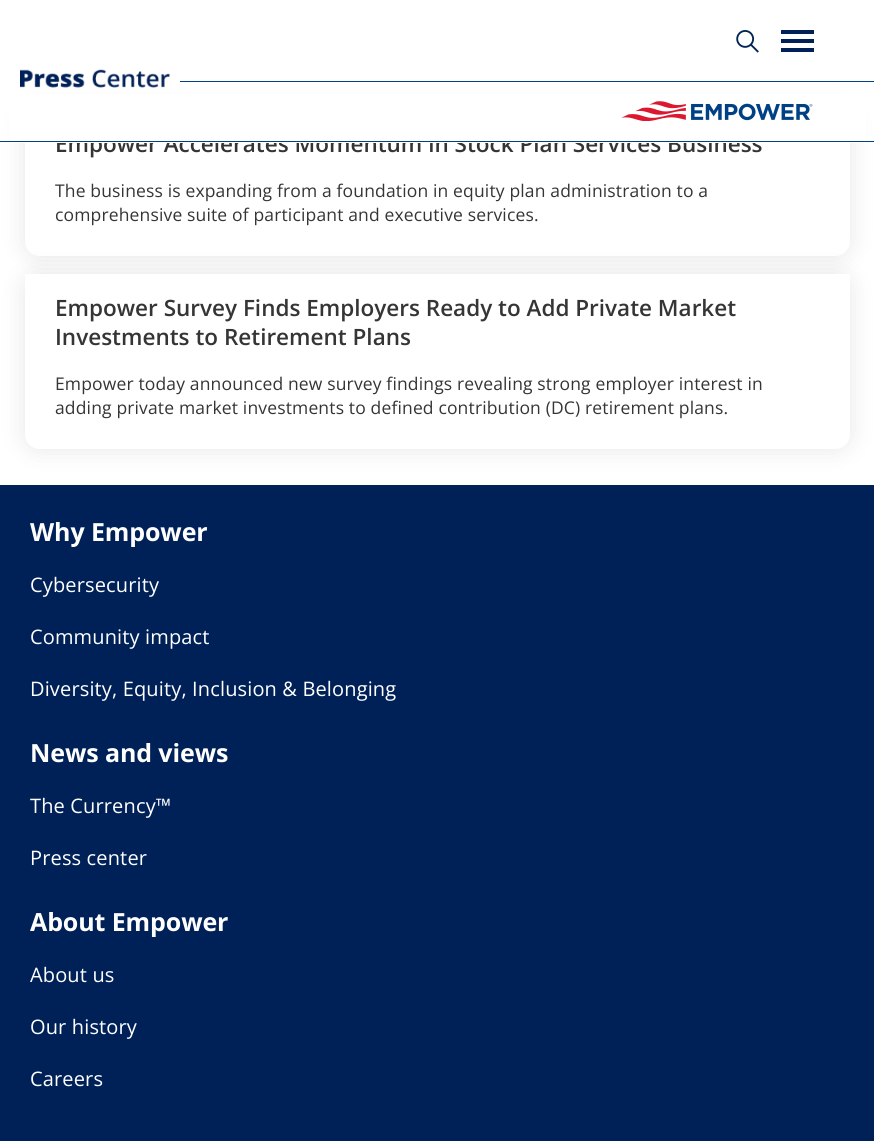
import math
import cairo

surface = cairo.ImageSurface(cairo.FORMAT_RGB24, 874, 1141)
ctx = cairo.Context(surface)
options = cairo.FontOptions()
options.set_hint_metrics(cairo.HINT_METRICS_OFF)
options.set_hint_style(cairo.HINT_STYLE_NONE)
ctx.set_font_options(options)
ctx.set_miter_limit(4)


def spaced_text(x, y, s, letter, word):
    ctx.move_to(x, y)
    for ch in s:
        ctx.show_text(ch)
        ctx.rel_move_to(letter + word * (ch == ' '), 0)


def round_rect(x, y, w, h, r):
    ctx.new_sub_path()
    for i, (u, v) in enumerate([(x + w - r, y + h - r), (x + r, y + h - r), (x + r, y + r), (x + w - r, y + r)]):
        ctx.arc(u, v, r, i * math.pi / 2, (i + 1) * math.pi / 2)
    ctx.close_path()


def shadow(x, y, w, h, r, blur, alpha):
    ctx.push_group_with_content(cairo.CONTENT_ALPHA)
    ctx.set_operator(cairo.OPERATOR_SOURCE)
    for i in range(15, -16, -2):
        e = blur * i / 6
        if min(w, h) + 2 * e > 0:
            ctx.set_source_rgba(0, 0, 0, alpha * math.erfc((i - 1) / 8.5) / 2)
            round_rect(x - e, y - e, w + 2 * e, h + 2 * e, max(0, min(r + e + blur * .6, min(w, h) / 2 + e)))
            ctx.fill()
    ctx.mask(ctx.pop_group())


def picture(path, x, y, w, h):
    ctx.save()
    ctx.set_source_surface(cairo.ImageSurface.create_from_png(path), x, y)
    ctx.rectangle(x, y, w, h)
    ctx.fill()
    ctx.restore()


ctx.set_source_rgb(1, 1, 1)
ctx.paint()
ctx.set_source_rgb(0, 0, 0)
shadow(25, 110, 825, 146, 15, 12.5, 0.1)
ctx.set_source_rgb(0, 0.255, 0.522)
ctx.rectangle(180, 81, 694, 1)
ctx.fill()
picture("img1.png", 736, 30, 23, 23)
ctx.set_source_rgb(0, 0.129, 0.341)
ctx.rectangle(781, 30, 33, 4)
ctx.fill()
ctx.rectangle(781, 48, 33, 4)
ctx.fill()
ctx.rectangle(781, 39, 33, 4)
ctx.fill()
picture("img2.png", 20, 69, 150, 19)
ctx.set_source_rgb(1, 1, 1)
ctx.new_path()
ctx.move_to(25, 110)
ctx.line_to(850, 110)
ctx.line_to(850, 241)
ctx.curve_to(850, 249.5, 843.5, 256, 835, 256)
ctx.line_to(40, 256)
ctx.curve_to(31.5, 256, 25, 249.5, 25, 241)
ctx.close_path()
ctx.fill()
ctx.select_font_face("Open Sans SemiBold")
ctx.set_font_size(22.5)
ctx.set_source_rgb(0.208, 0.208, 0.208)
ctx.move_to(55, 152)
ctx.show_text("Empower Accelerates Momentum in Stock Plan Services Business")
ctx.set_source_rgb(1, 1, 1)
ctx.rectangle(9, 94, 857, 49)
ctx.fill()
ctx.set_source_rgb(0, 0.255, 0.522)
ctx.rectangle(0, 141, 874, 1)
ctx.fill()
picture("img3.png", 621, 101, 192, 20)
ctx.select_font_face("Open Sans")
ctx.set_font_size(17.5)
ctx.set_source_rgb(0.208, 0.208, 0.208)
spaced_text(55, 197, "The business is expanding from a foundation in equity plan administration to a", 0.15, 0)
spaced_text(55, 221, "comprehensive suite of participant and executive services.", 0.15, 0)
ctx.set_source_rgb(0, 0.129, 0.341)
ctx.rectangle(0, 485, 874, 656)
ctx.fill()
ctx.set_source_rgb(0, 0, 0)
shadow(25, 274, 825, 175, 15, 12.5, 0.1)
ctx.set_source_rgb(1, 1, 1)
ctx.new_path()
ctx.move_to(25, 274)
ctx.line_to(850, 274)
ctx.line_to(850, 434)
ctx.curve_to(850, 442.5, 843.5, 449, 835, 449)
ctx.line_to(40, 449)
ctx.curve_to(31.5, 449, 25, 442.5, 25, 434)
ctx.close_path()
ctx.fill()
ctx.select_font_face("Open Sans SemiBold")
ctx.set_font_size(22.5)
ctx.set_source_rgb(0.208, 0.208, 0.208)
ctx.move_to(55, 316)
ctx.show_text("Empower Survey Finds Employers Ready to Add Private Market")
ctx.move_to(55, 345)
ctx.show_text("Investments to Retirement Plans")
ctx.select_font_face("Open Sans")
ctx.set_font_size(17.5)
spaced_text(55, 390, "Empower today announced new survey findings revealing strong employer interest in", 0.15, 0)
spaced_text(55, 414, "adding private market investments to defined contribution (DC) retirement plans.", 0.15, 0)
ctx.select_font_face("Open Sans", cairo.FONT_SLANT_NORMAL, cairo.FONT_WEIGHT_BOLD)
ctx.set_font_size(25)
ctx.set_source_rgb(1, 1, 1)
spaced_text(30, 541, "Why Empower", -0.1, 0)
ctx.select_font_face("Open Sans")
ctx.set_font_size(20)
spaced_text(30, 592, "Cybersecurity", 0.15, 0)
spaced_text(30, 644, "Community impact", 0.15, 0)
spaced_text(30, 696, "Diversity, Equity, Inclusion & Belonging", 0.15, 0)
ctx.select_font_face("Open Sans", cairo.FONT_SLANT_NORMAL, cairo.FONT_WEIGHT_BOLD)
ctx.set_font_size(25)
spaced_text(30, 762, "News and views", -0.1, 0)
ctx.select_font_face("Open Sans")
ctx.set_font_size(20)
spaced_text(30, 813, "The Currency™", 0.15, 0)
spaced_text(30, 865, "Press center", 0.15, 0)
ctx.select_font_face("Open Sans", cairo.FONT_SLANT_NORMAL, cairo.FONT_WEIGHT_BOLD)
ctx.set_font_size(25)
spaced_text(30, 931, "About Empower", -0.1, 0)
ctx.select_font_face("Open Sans")
ctx.set_font_size(20)
spaced_text(30, 982, "About us", 0.15, 0)
spaced_text(30, 1034, "Our history", 0.15, 0)
spaced_text(30, 1086, "Careers", 0.15, 0)
surface.write_to_png("page.png")
